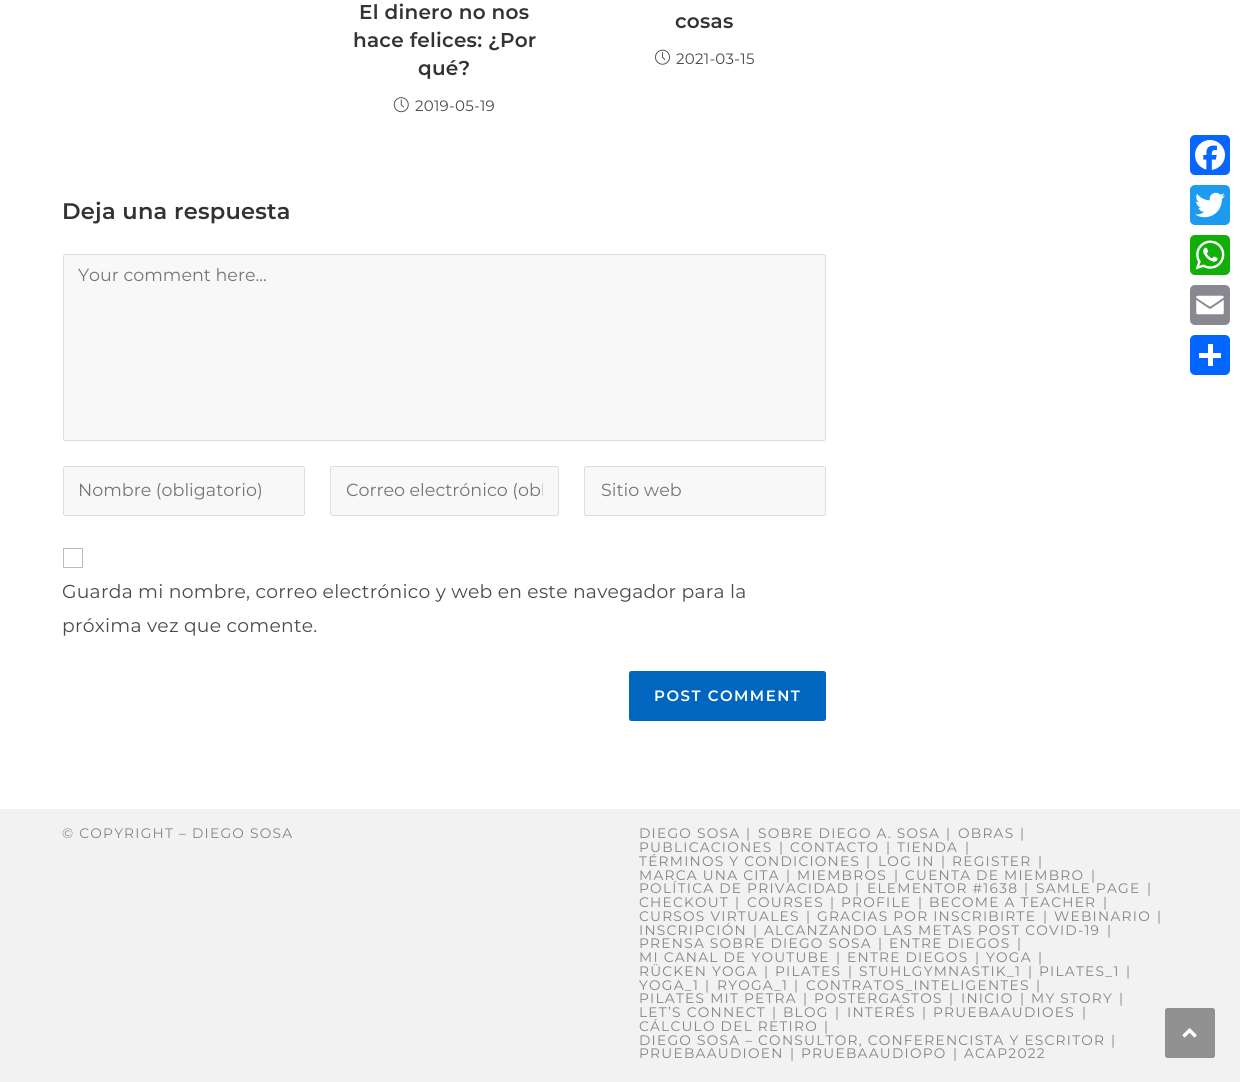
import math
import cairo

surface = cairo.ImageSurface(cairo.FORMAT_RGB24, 1240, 1082)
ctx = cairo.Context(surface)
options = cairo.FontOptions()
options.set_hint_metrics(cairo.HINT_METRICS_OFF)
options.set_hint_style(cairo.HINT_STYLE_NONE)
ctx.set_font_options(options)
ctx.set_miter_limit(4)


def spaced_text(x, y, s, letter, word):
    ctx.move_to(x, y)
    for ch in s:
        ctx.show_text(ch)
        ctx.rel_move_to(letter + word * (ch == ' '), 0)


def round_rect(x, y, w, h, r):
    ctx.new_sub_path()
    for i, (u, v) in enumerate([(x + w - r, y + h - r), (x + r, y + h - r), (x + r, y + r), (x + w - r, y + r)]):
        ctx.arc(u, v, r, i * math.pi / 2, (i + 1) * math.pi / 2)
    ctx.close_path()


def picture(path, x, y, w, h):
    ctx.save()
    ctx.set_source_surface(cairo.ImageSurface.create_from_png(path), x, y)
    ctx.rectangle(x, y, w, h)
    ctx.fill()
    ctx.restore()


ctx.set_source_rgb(1, 1, 1)
ctx.paint()
ctx.select_font_face("Montserrat SemiBold")
ctx.set_font_size(20)
ctx.set_source_rgb(0.2, 0.2, 0.2)
spaced_text(359, 19, "El dinero no nos", 0.25, 0)
spaced_text(353, 47, "hace felices: ¿Por", 0.25, 0)
spaced_text(418, 75, "qué?", 0.25, 0)
picture("img1.png", 393, 97, 16, 16)
ctx.select_font_face("Montserrat")
ctx.set_font_size(15)
ctx.set_source_rgb(0.29, 0.29, 0.29)
spaced_text(415, 111, "2019-05-19", 0.25, 0)
ctx.select_font_face("Montserrat SemiBold")
ctx.set_font_size(20)
ctx.set_source_rgb(0.2, 0.2, 0.2)
spaced_text(675, 28, "cosas", 0.25, 0)
picture("img2.png", 655, 49, 15, 16)
ctx.select_font_face("Montserrat")
ctx.set_font_size(15)
ctx.set_source_rgb(0.29, 0.29, 0.29)
spaced_text(676, 64, "2021-03-15", 0.25, 0)
ctx.select_font_face("Montserrat SemiBold")
ctx.set_font_size(22.5)
ctx.set_source_rgb(0.2, 0.2, 0.2)
spaced_text(62, 219, "Deja una respuesta", 0.25, 0)
ctx.set_source_rgb(0.969, 0.969, 0.969)
round_rect(63.5, 254.5, 762, 186, 2)
ctx.fill_preserve()
ctx.set_source_rgb(0.867, 0.867, 0.867)
ctx.set_line_width(1)
ctx.stroke()
ctx.select_font_face("Montserrat")
ctx.set_font_size(17.5)
ctx.set_source_rgb(0.459, 0.459, 0.459)
ctx.move_to(78, 281)
ctx.show_text("Your comment here...")
ctx.set_source_rgb(0.969, 0.969, 0.969)
round_rect(63.5, 466.5, 241, 49, 2)
ctx.fill_preserve()
ctx.set_source_rgb(0.867, 0.867, 0.867)
ctx.stroke()
ctx.set_source_rgb(0.459, 0.459, 0.459)
ctx.move_to(78, 496)
ctx.show_text("Nombre (obligatorio)")
ctx.set_source_rgb(0.969, 0.969, 0.969)
round_rect(330.5, 466.5, 228, 49, 2)
ctx.fill_preserve()
ctx.set_source_rgb(0.867, 0.867, 0.867)
ctx.stroke()
ctx.save()
ctx.rectangle(346, 479, 197, 22)
ctx.clip()
ctx.set_source_rgb(0.459, 0.459, 0.459)
ctx.move_to(346, 496)
ctx.show_text("Correo electrónico (obl")
ctx.restore()
ctx.set_source_rgb(0.969, 0.969, 0.969)
round_rect(584.5, 466.5, 241, 49, 2)
ctx.fill_preserve()
ctx.set_source_rgb(0.867, 0.867, 0.867)
ctx.stroke()
ctx.set_source_rgb(0.459, 0.459, 0.459)
ctx.move_to(601, 496)
ctx.show_text("Sitio web")
ctx.rectangle(63.5, 548.5, 19, 19)
ctx.set_source_rgb(0.733, 0.733, 0.733)
ctx.stroke()
ctx.set_font_size(18.75)
ctx.set_source_rgb(0.29, 0.29, 0.29)
spaced_text(62, 598, "Guarda mi nombre, correo electrónico y web en este navegador para la", 0.25, 0)
spaced_text(62, 632, "próxima vez que comente.", 0.25, 0)
ctx.set_source_rgb(0, 0.4, 0.749)
round_rect(629, 671, 197, 50, 2.5)
ctx.fill()
ctx.select_font_face("Montserrat SemiBold")
ctx.set_font_size(15)
ctx.set_source_rgb(1, 1, 1)
spaced_text(654, 701, "POST COMMENT", 1.5, 0)
ctx.set_source_rgb(0.949, 0.949, 0.949)
ctx.rectangle(0, 809, 1240, 273)
ctx.fill()
ctx.select_font_face("Montserrat")
ctx.set_font_size(13.75)
ctx.set_source_rgb(0.518, 0.518, 0.518)
spaced_text(62, 838, "© COPYRIGHT – DIEGO SOSA", 1.25, 0)
spaced_text(639, 838, "DIEGO SOSA", 1.25, 0)
spaced_text(746, 838, "|", 1.25, 0)
spaced_text(758, 838, "SOBRE DIEGO A. SOSA", 1.25, 0)
spaced_text(946, 838, "|", 1.25, 0)
spaced_text(958, 838, "OBRAS", 1.25, 0)
spaced_text(1020, 838, "|", 1.25, 0)
spaced_text(639, 852, "PUBLICACIONES", 1.25, 0)
spaced_text(779, 852, "|", 1.25, 0)
spaced_text(790, 852, "CONTACTO", 1.25, 0)
spaced_text(886, 852, "|", 1.25, 0)
spaced_text(897, 852, "TIENDA", 1.25, 0)
spaced_text(965, 852, "|", 1.25, 0)
spaced_text(639, 866, "TÉRMINOS Y CONDICIONES", 1.25, 0)
spaced_text(866, 866, "|", 1.25, 0)
spaced_text(878, 866, "LOG IN", 1.25, 0)
spaced_text(941, 866, "|", 1.25, 0)
spaced_text(952, 866, "REGISTER", 1.25, 0)
spaced_text(1038, 866, "|", 1.25, 0)
spaced_text(639, 880, "MARCA UNA CITA", 1.25, 0)
spaced_text(786, 880, "|", 1.25, 0)
spaced_text(797, 880, "MIEMBROS", 1.25, 0)
spaced_text(894, 880, "|", 1.25, 0)
spaced_text(905, 880, "CUENTA DE MIEMBRO", 1.25, 0)
spaced_text(1091, 880, "|", 1.25, 0)
spaced_text(639, 893, "POLÍTICA DE PRIVACIDAD", 1.25, 0)
spaced_text(855, 893, "|", 1.25, 0)
spaced_text(867, 893, "ELEMENTOR #1638", 1.25, 0)
spaced_text(1024, 893, "|", 1.25, 0)
spaced_text(1036, 893, "SAMLE PAGE", 1.25, 0)
spaced_text(1147, 893, "|", 1.25, 0)
spaced_text(639, 907, "CHECKOUT", 1.25, 0)
spaced_text(735, 907, "|", 1.25, 0)
spaced_text(747, 907, "COURSES", 1.25, 0)
spaced_text(830, 907, "|", 1.25, 0)
spaced_text(841, 907, "PROFILE", 1.25, 0)
spaced_text(918, 907, "|", 1.25, 0)
spaced_text(929, 907, "BECOME A TEACHER", 1.25, 0)
spaced_text(1103, 907, "|", 1.25, 0)
spaced_text(639, 921, "CURSOS VIRTUALES", 1.25, 0)
spaced_text(806, 921, "|", 1.25, 0)
spaced_text(817, 921, "GRACIAS POR INSCRIBIRTE", 1.25, 0)
spaced_text(1043, 921, "|", 1.25, 0)
spaced_text(1054, 921, "WEBINARIO", 1.25, 0)
spaced_text(1157, 921, "|", 1.25, 0)
spaced_text(639, 935, "INSCRIPCIÓN", 1.25, 0)
spaced_text(753, 935, "|", 1.25, 0)
spaced_text(764, 935, "ALCANZANDO LAS METAS POST COVID-19", 1.25, 0)
spaced_text(1107, 935, "|", 1.25, 0)
spaced_text(639, 948, "PRENSA SOBRE DIEGO SOSA", 1.25, 0)
spaced_text(878, 948, "|", 1.25, 0)
spaced_text(889, 948, "ENTRE DIEGOS", 1.25, 0)
spaced_text(1017, 948, "|", 1.25, 0)
spaced_text(639, 962, "MI CANAL DE YOUTUBE", 1.25, 0)
spaced_text(836, 962, "|", 1.25, 0)
spaced_text(847, 962, "ENTRE DIEGOS", 1.25, 0)
spaced_text(975, 962, "|", 1.25, 0)
spaced_text(986, 962, "YOGA", 1.25, 0)
spaced_text(1038, 962, "|", 1.25, 0)
spaced_text(639, 976, "RÜCKEN YOGA", 1.25, 0)
spaced_text(764, 976, "|", 1.25, 0)
spaced_text(775, 976, "PILATES", 1.25, 0)
spaced_text(848, 976, "|", 1.25, 0)
spaced_text(859, 976, "STUHLGYMNASTIK_1", 1.25, 0)
spaced_text(1028, 976, "|", 1.25, 0)
spaced_text(1039, 976, "PILATES_1", 1.25, 0)
spaced_text(1126, 976, "|", 1.25, 0)
spaced_text(639, 990, "YOGA_1", 1.25, 0)
spaced_text(705, 990, "|", 1.25, 0)
spaced_text(717, 990, "RYOGA_1", 1.25, 0)
spaced_text(794, 990, "|", 1.25, 0)
spaced_text(806, 990, "CONTRATOS_INTELIGENTES", 1.25, 0)
spaced_text(1036, 990, "|", 1.25, 0)
spaced_text(639, 1003, "PILATES MIT PETRA", 1.25, 0)
spaced_text(803, 1003, "|", 1.25, 0)
spaced_text(814, 1003, "POSTERGASTOS", 1.25, 0)
spaced_text(949, 1003, "|", 1.25, 0)
spaced_text(961, 1003, "INICIO", 1.25, 0)
spaced_text(1020, 1003, "|", 1.25, 0)
spaced_text(1031, 1003, "MY STORY", 1.25, 0)
spaced_text(1119, 1003, "|", 1.25, 0)
spaced_text(639, 1017, "LET’S CONNECT", 1.25, 0)
spaced_text(772, 1017, "|", 1.25, 0)
spaced_text(783, 1017, "BLOG", 1.25, 0)
spaced_text(835, 1017, "|", 1.25, 0)
spaced_text(847, 1017, "INTERÉS", 1.25, 0)
spaced_text(922, 1017, "|", 1.25, 0)
spaced_text(933, 1017, "PRUEBAAUDIOES", 1.25, 0)
spaced_text(1082, 1017, "|", 1.25, 0)
spaced_text(639, 1031, "CÁLCULO DEL RETIRO", 1.25, 0)
spaced_text(824, 1031, "|", 1.25, 0)
spaced_text(639, 1045, "DIEGO SOSA – CONSULTOR, CONFERENCISTA Y ESCRITOR", 1.25, 0)
spaced_text(1111, 1045, "|", 1.25, 0)
spaced_text(639, 1058, "PRUEBAAUDIOEN", 1.25, 0)
spaced_text(790, 1058, "|", 1.25, 0)
spaced_text(801, 1058, "PRUEBAAUDIOPO", 1.25, 0)
spaced_text(953, 1058, "|", 1.25, 0)
spaced_text(964, 1058, "ACAP2022", 1.25, 0)
ctx.set_source_rgb(0.031, 0.4, 1)
round_rect(1190, 135, 40, 40, 5)
ctx.fill()
picture("img3.png", 1195, 140, 30, 30)
ctx.set_source_rgb(0.114, 0.608, 0.941)
round_rect(1190, 185, 40, 40, 5)
ctx.fill()
picture("img4.png", 1195, 192, 30, 26)
ctx.set_source_rgb(0.071, 0.686, 0.039)
round_rect(1190, 235, 40, 40, 5)
ctx.fill()
picture("img5.png", 1195, 240, 30, 30)
ctx.set_source_rgb(0.533, 0.537, 0.565)
round_rect(1190, 285, 40, 40, 5)
ctx.fill()
picture("img6.png", 1196, 295, 28, 20)
ctx.set_source_rgb(0.004, 0.4, 1)
round_rect(1190, 335, 40, 40, 5)
ctx.fill()
ctx.set_source_rgb(1, 1, 1)
ctx.rectangle(1208, 344, 5, 22)
ctx.fill()
ctx.rectangle(1199, 353, 22, 5)
ctx.fill()
ctx.set_source_rgb(0.569, 0.569, 0.569)
round_rect(1165, 1008, 50, 50, 2.5)
ctx.fill()
picture("img7.png", 1182, 1028, 15, 10)
surface.write_to_png("page.png")
